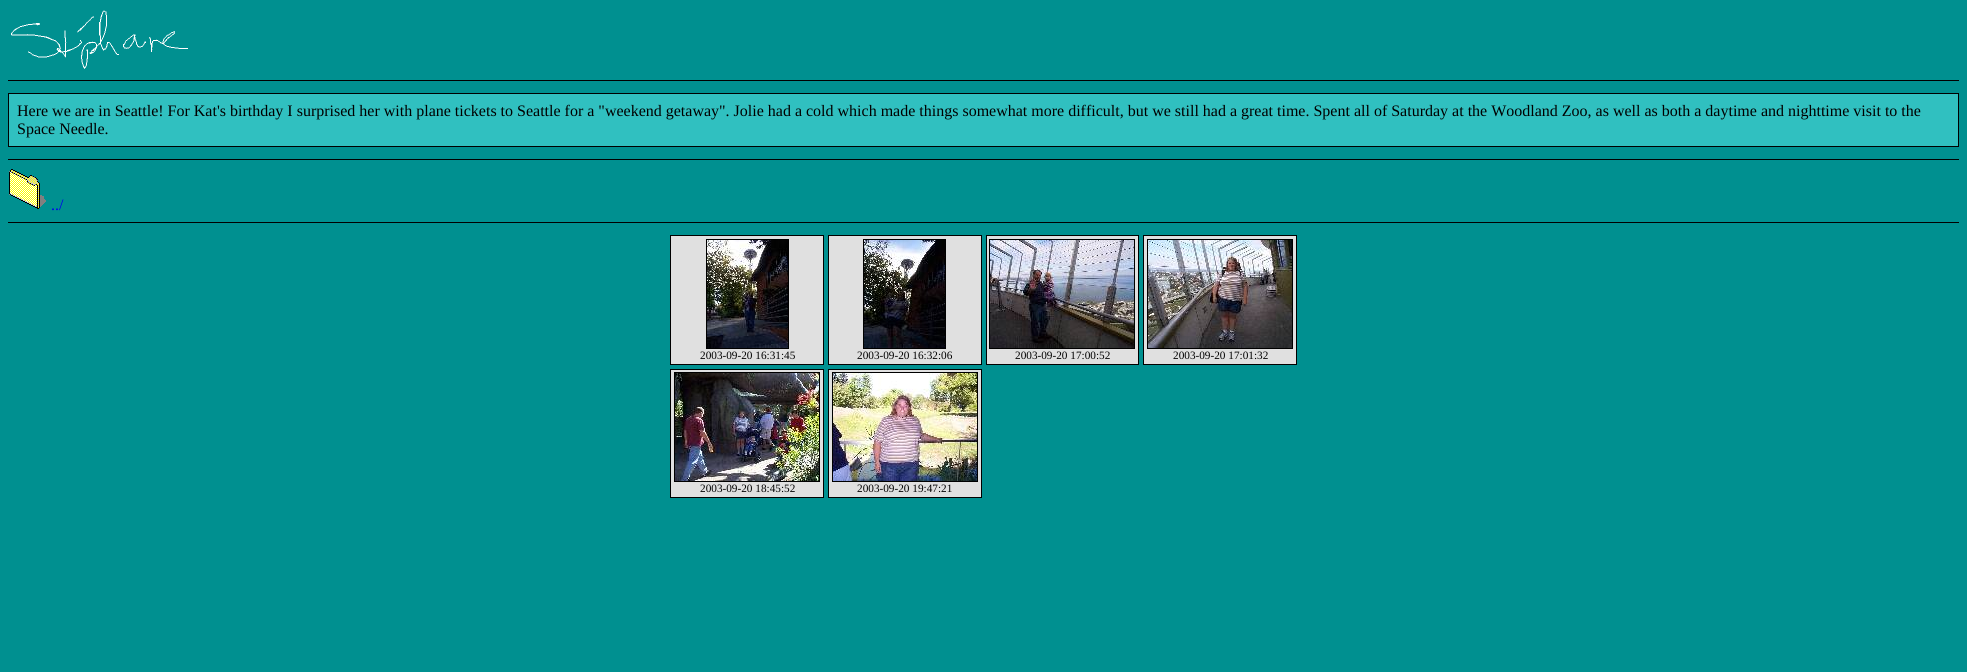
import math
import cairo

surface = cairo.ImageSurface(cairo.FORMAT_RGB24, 1967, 672)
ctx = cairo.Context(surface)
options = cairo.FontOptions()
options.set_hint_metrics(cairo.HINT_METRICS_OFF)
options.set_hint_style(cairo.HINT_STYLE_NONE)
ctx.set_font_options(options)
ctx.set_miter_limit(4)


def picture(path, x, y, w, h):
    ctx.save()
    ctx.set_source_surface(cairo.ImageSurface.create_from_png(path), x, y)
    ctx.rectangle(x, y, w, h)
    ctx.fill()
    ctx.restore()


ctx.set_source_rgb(0, 0.565, 0.565)
ctx.paint()
picture("img1.png", 11, 10, 177, 59)
ctx.set_source_rgb(0, 0, 0)
ctx.rectangle(8, 80, 1951, 1)
ctx.fill()
ctx.set_source_rgb(0.188, 0.753, 0.753)
ctx.rectangle(8.5, 93.5, 1950, 53)
ctx.fill_preserve()
ctx.set_source_rgb(0, 0, 0)
ctx.set_line_width(1)
ctx.stroke()
ctx.select_font_face("Liberation Serif")
ctx.set_font_size(16)
ctx.move_to(17, 116)
ctx.show_text("Here we are in Seattle! For Kat's birthday I surprised her with plane tickets to Seattle for a \"weekend getaway\". Jolie had a cold which made things somewhat more difficult, but we still had a great time. Spent all of Saturday at the Woodland Zoo, as well as both a daytime and nighttime visit to the")
ctx.move_to(17, 134)
ctx.show_text("Space Needle.")
ctx.rectangle(8, 159, 1951, 1)
ctx.fill()
picture("img2.png", 9, 169, 37, 40)
ctx.set_source_rgb(0, 0, 0.933)
ctx.move_to(51, 210)
ctx.show_text("../")
ctx.set_source_rgb(0, 0, 0)
ctx.rectangle(8, 222, 1951, 1)
ctx.fill()
ctx.set_source_rgb(0.878, 0.878, 0.878)
ctx.rectangle(670.5, 235.5, 153, 129)
ctx.fill_preserve()
ctx.set_source_rgb(0, 0, 0)
ctx.stroke()
ctx.rectangle(706.5, 239.5, 82, 109)
ctx.stroke()
picture("img3.png", 707, 240, 81, 108)
ctx.set_font_size(11.25)
ctx.move_to(700, 359)
ctx.show_text("2003-09-20 16:31:45")
ctx.set_source_rgb(0.878, 0.878, 0.878)
ctx.rectangle(828.5, 235.5, 153, 129)
ctx.fill_preserve()
ctx.set_source_rgb(0, 0, 0)
ctx.stroke()
ctx.rectangle(863.5, 239.5, 82, 109)
ctx.stroke()
picture("img4.png", 864, 240, 81, 108)
ctx.move_to(857, 359)
ctx.show_text("2003-09-20 16:32:06")
ctx.set_source_rgb(0.878, 0.878, 0.878)
ctx.rectangle(986.5, 235.5, 152, 129)
ctx.fill_preserve()
ctx.set_source_rgb(0, 0, 0)
ctx.stroke()
ctx.rectangle(989.5, 239.5, 145, 109)
ctx.stroke()
picture("img5.png", 990, 240, 144, 108)
ctx.move_to(1015, 359)
ctx.show_text("2003-09-20 17:00:52")
ctx.set_source_rgb(0.878, 0.878, 0.878)
ctx.rectangle(1143.5, 235.5, 153, 129)
ctx.fill_preserve()
ctx.set_source_rgb(0, 0, 0)
ctx.stroke()
ctx.rectangle(1147.5, 239.5, 145, 109)
ctx.stroke()
picture("img6.png", 1148, 240, 144, 108)
ctx.move_to(1173, 359)
ctx.show_text("2003-09-20 17:01:32")
ctx.set_source_rgb(0.878, 0.878, 0.878)
ctx.rectangle(670.5, 369.5, 153, 128)
ctx.fill_preserve()
ctx.set_source_rgb(0, 0, 0)
ctx.stroke()
ctx.rectangle(674.5, 372.5, 145, 109)
ctx.stroke()
picture("img7.png", 675, 373, 144, 108)
ctx.move_to(700, 492)
ctx.show_text("2003-09-20 18:45:52")
ctx.set_source_rgb(0.878, 0.878, 0.878)
ctx.rectangle(828.5, 369.5, 153, 128)
ctx.fill_preserve()
ctx.set_source_rgb(0, 0, 0)
ctx.stroke()
ctx.rectangle(832.5, 372.5, 145, 109)
ctx.stroke()
picture("img8.png", 833, 373, 144, 108)
ctx.move_to(857, 492)
ctx.show_text("2003-09-20 19:47:21")
surface.write_to_png("page.png")
